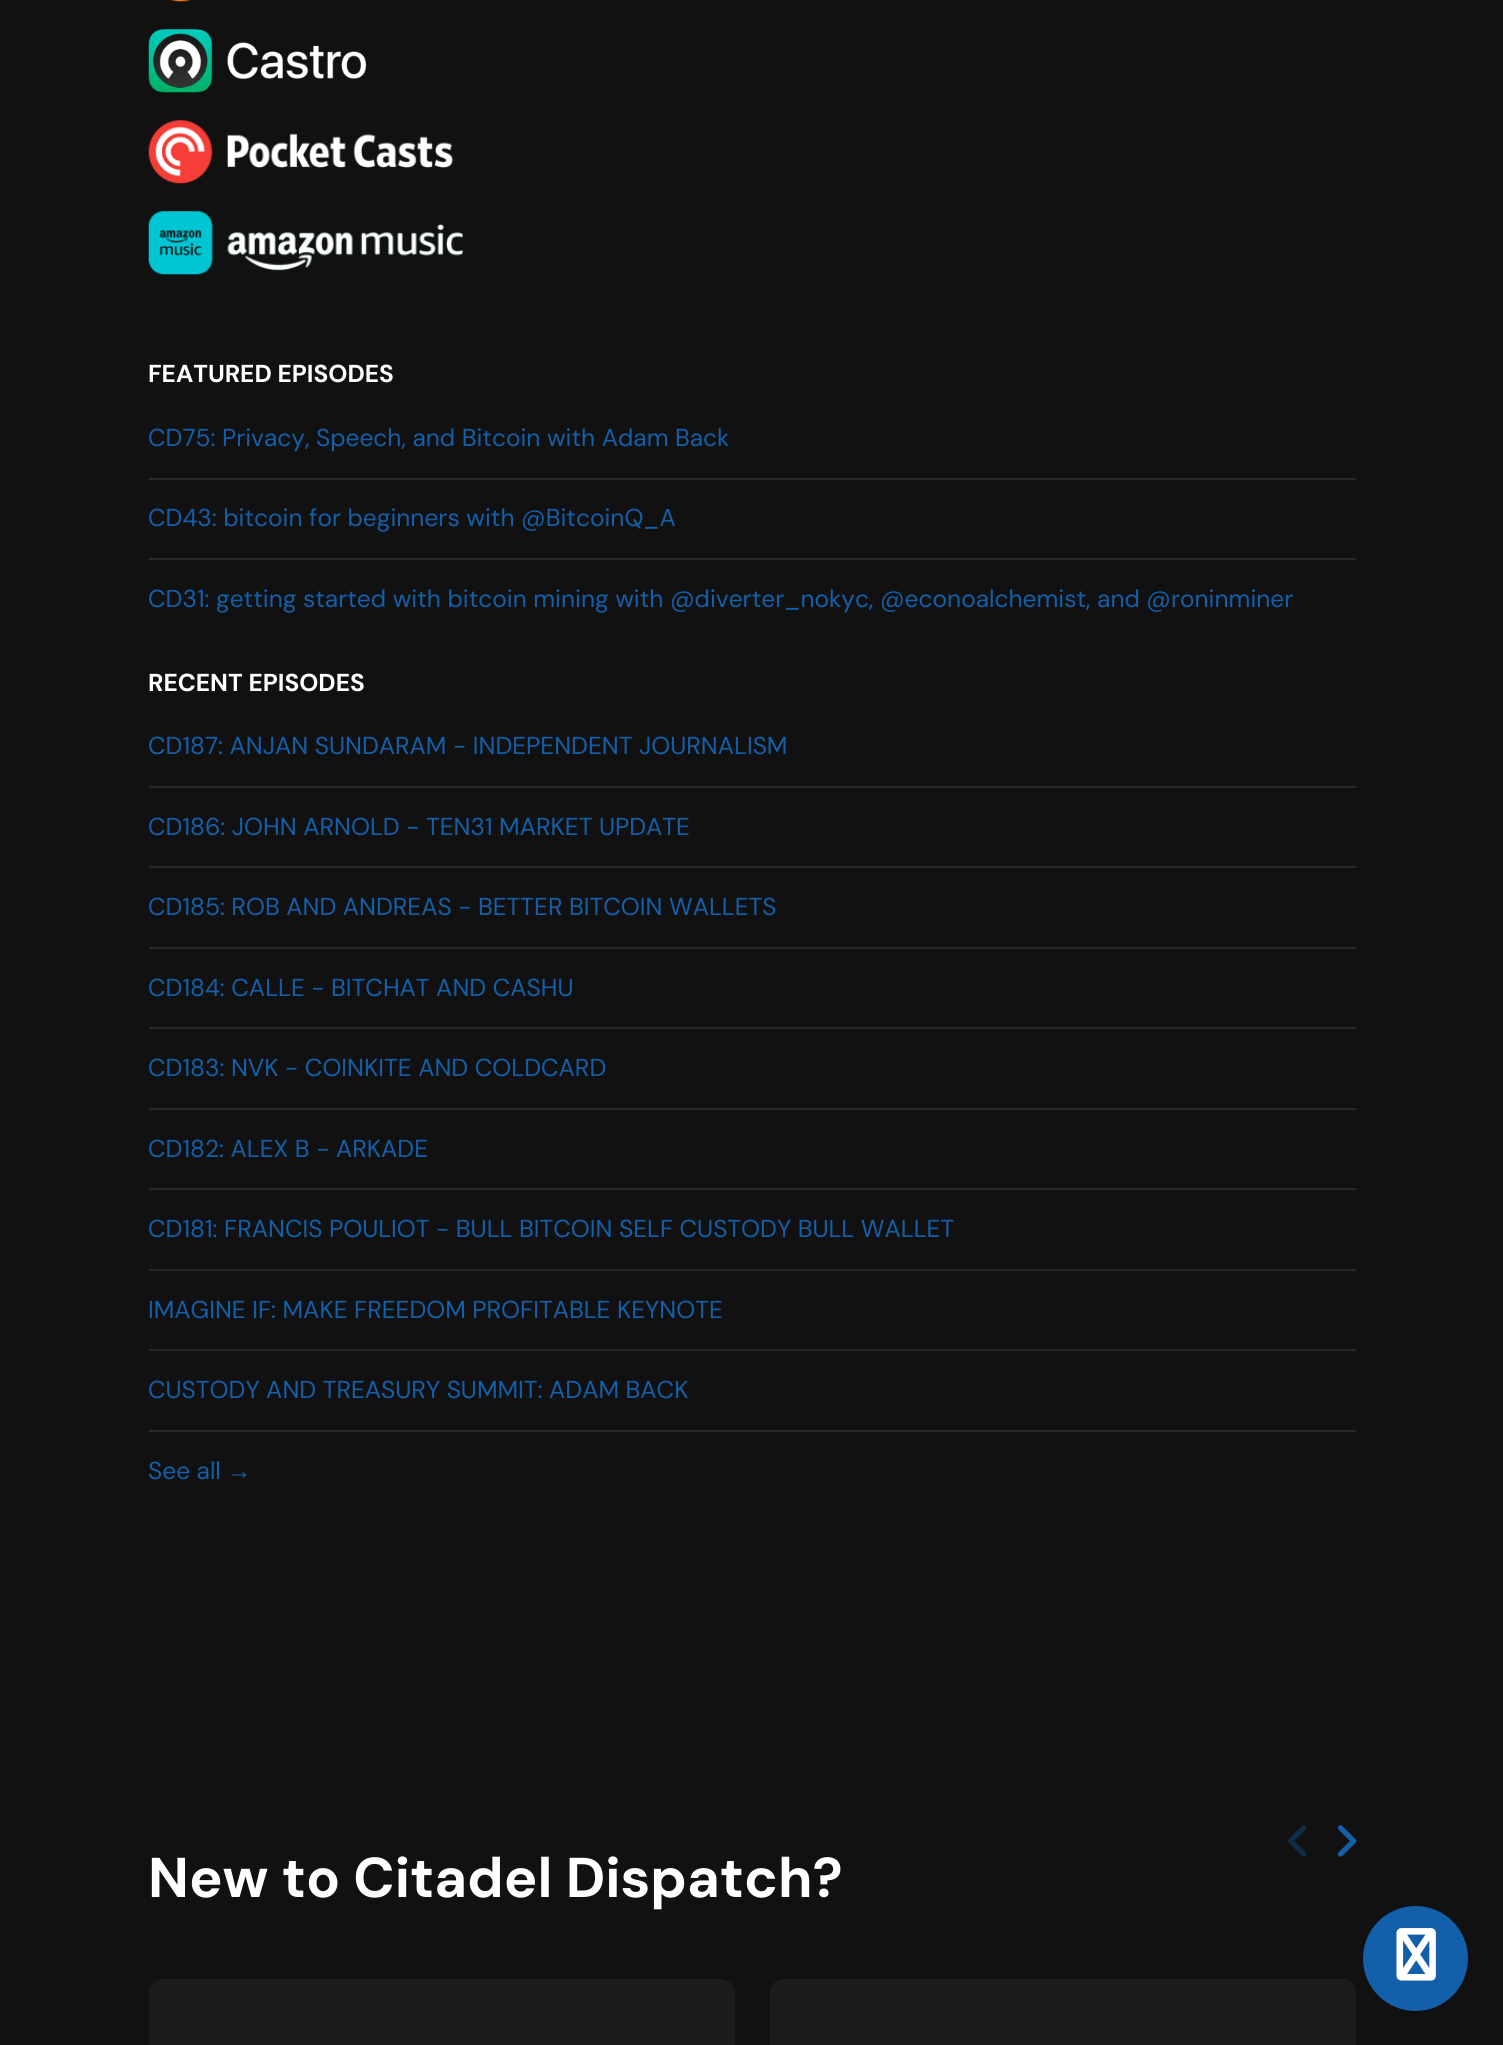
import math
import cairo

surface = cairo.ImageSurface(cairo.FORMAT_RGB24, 1503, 2045)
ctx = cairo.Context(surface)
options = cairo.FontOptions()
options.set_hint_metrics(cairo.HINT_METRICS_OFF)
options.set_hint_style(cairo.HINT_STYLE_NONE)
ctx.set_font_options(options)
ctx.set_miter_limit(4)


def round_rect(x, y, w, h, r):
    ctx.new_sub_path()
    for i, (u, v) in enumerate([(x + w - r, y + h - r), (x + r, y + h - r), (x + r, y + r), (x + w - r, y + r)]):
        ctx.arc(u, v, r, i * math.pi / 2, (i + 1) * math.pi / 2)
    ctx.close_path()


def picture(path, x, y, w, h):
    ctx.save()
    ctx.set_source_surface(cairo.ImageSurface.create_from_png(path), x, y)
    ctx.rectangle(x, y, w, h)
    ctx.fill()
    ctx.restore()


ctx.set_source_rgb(0.067, 0.067, 0.067)
ctx.paint()
picture("img1.png", 170, 0, 21, 2)
picture("img2.png", 148, 29, 219, 64)
picture("img3.png", 148, 120, 306, 64)
picture("img4.png", 148, 211, 315, 64)
ctx.select_font_face("DM Sans", cairo.FONT_SLANT_NORMAL, cairo.FONT_WEIGHT_BOLD)
ctx.set_font_size(24.5)
ctx.set_source_rgb(1, 1, 1)
ctx.move_to(148, 382)
ctx.show_text("FEATURED EPISODES")
ctx.set_source_rgb(0.161, 0.161, 0.161)
ctx.rectangle(149, 478, 1207, 2)
ctx.fill()
ctx.select_font_face("DM Sans")
ctx.set_source_rgb(0.075, 0.373, 0.663)
ctx.move_to(148, 446)
ctx.show_text("CD75: Privacy, Speech, and Bitcoin with Adam Back")
ctx.set_source_rgb(0.161, 0.161, 0.161)
ctx.rectangle(149, 558, 1207, 2)
ctx.fill()
ctx.set_source_rgb(0.075, 0.373, 0.663)
ctx.move_to(148, 526)
ctx.show_text("CD43: bitcoin for beginners with @BitcoinQ_A")
ctx.move_to(148, 607)
ctx.show_text("CD31: getting started with bitcoin mining with @diverter_nokyc, @econoalchemist, and @roninminer")
ctx.select_font_face("DM Sans", cairo.FONT_SLANT_NORMAL, cairo.FONT_WEIGHT_BOLD)
ctx.set_source_rgb(1, 1, 1)
ctx.move_to(148, 691)
ctx.show_text("RECENT EPISODES")
ctx.set_source_rgb(0.161, 0.161, 0.161)
ctx.rectangle(149, 786, 1207, 2)
ctx.fill()
ctx.select_font_face("DM Sans")
ctx.set_source_rgb(0.075, 0.373, 0.663)
ctx.move_to(148, 754)
ctx.show_text("CD187: ANJAN SUNDARAM - INDEPENDENT JOURNALISM")
ctx.set_source_rgb(0.161, 0.161, 0.161)
ctx.rectangle(149, 866, 1207, 2)
ctx.fill()
ctx.set_source_rgb(0.075, 0.373, 0.663)
ctx.move_to(148, 835)
ctx.show_text("CD186: JOHN ARNOLD - TEN31 MARKET UPDATE")
ctx.set_source_rgb(0.161, 0.161, 0.161)
ctx.rectangle(149, 947, 1207, 2)
ctx.fill()
ctx.set_source_rgb(0.075, 0.373, 0.663)
ctx.move_to(148, 915)
ctx.show_text("CD185: ROB AND ANDREAS - BETTER BITCOIN WALLETS")
ctx.set_source_rgb(0.161, 0.161, 0.161)
ctx.rectangle(149, 1027, 1207, 2)
ctx.fill()
ctx.set_source_rgb(0.075, 0.373, 0.663)
ctx.move_to(148, 996)
ctx.show_text("CD184: CALLE - BITCHAT AND CASHU")
ctx.set_source_rgb(0.161, 0.161, 0.161)
ctx.rectangle(149, 1108, 1207, 2)
ctx.fill()
ctx.set_source_rgb(0.075, 0.373, 0.663)
ctx.move_to(148, 1076)
ctx.show_text("CD183: NVK - COINKITE AND COLDCARD")
ctx.set_source_rgb(0.161, 0.161, 0.161)
ctx.rectangle(149, 1188, 1207, 2)
ctx.fill()
ctx.set_source_rgb(0.075, 0.373, 0.663)
ctx.move_to(148, 1157)
ctx.show_text("CD182: ALEX B - ARKADE")
ctx.set_source_rgb(0.161, 0.161, 0.161)
ctx.rectangle(149, 1269, 1207, 2)
ctx.fill()
ctx.set_source_rgb(0.075, 0.373, 0.663)
ctx.move_to(148, 1237)
ctx.show_text("CD181: FRANCIS POULIOT - BULL BITCOIN SELF CUSTODY BULL WALLET")
ctx.set_source_rgb(0.161, 0.161, 0.161)
ctx.rectangle(149, 1349, 1207, 2)
ctx.fill()
ctx.set_source_rgb(0.075, 0.373, 0.663)
ctx.move_to(148, 1318)
ctx.show_text("IMAGINE IF: MAKE FREEDOM PROFITABLE KEYNOTE")
ctx.set_source_rgb(0.161, 0.161, 0.161)
ctx.rectangle(149, 1430, 1207, 2)
ctx.fill()
ctx.set_source_rgb(0.075, 0.373, 0.663)
ctx.move_to(148, 1398)
ctx.show_text("CUSTODY AND TREASURY SUMMIT: ADAM BACK")
ctx.move_to(148, 1479)
ctx.show_text("See all")
ctx.select_font_face("Liberation Sans")
ctx.move_to(227, 1479)
ctx.show_text("→")
picture("img5.png", 1288, 1825, 19, 32)
picture("img6.png", 1337, 1825, 20, 32)
ctx.select_font_face("DM Sans", cairo.FONT_SLANT_NORMAL, cairo.FONT_WEIGHT_BOLD)
ctx.set_font_size(56)
ctx.set_source_rgb(1, 1, 1)
ctx.move_to(148, 1897)
ctx.show_text("New to Citadel Dispatch?")
ctx.set_source_rgb(0.11, 0.11, 0.11)
round_rect(149, 1979, 586, 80, 14)
ctx.fill()
round_rect(770, 1979, 586, 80, 14)
ctx.fill()
ctx.set_source_rgb(0.075, 0.373, 0.663)
ctx.arc(1415.5, 1958.5, 51.5, 0, 2 * math.pi)
ctx.fill_preserve()
ctx.stroke()
picture("img7.png", 1396, 1928, 40, 53)
surface.write_to_png("page.png")
